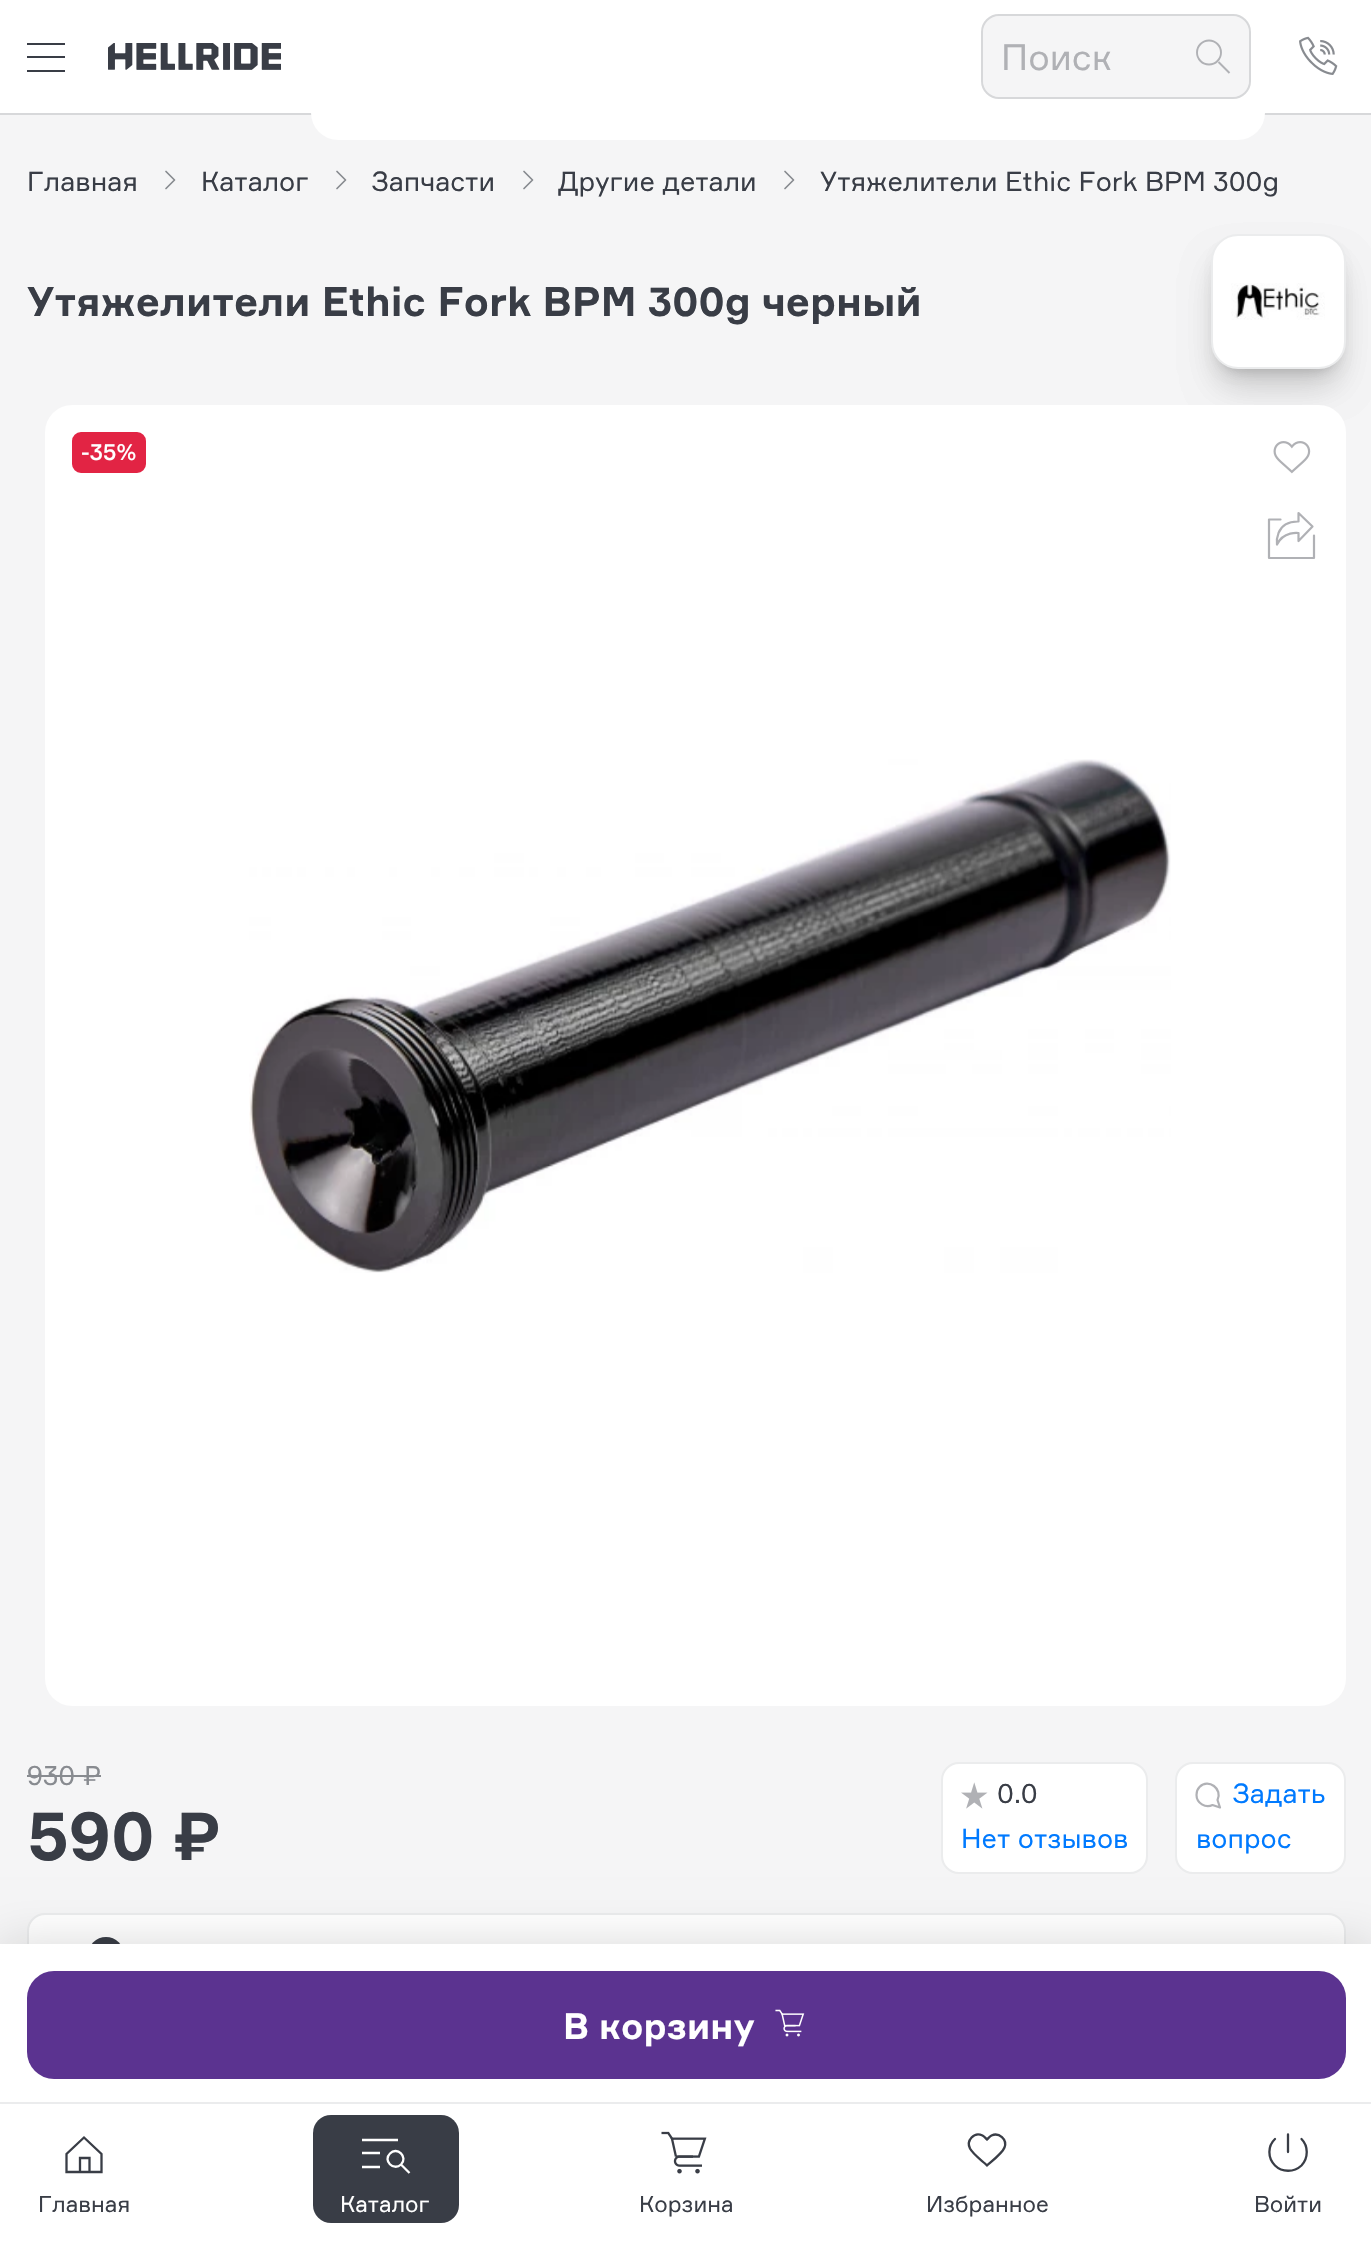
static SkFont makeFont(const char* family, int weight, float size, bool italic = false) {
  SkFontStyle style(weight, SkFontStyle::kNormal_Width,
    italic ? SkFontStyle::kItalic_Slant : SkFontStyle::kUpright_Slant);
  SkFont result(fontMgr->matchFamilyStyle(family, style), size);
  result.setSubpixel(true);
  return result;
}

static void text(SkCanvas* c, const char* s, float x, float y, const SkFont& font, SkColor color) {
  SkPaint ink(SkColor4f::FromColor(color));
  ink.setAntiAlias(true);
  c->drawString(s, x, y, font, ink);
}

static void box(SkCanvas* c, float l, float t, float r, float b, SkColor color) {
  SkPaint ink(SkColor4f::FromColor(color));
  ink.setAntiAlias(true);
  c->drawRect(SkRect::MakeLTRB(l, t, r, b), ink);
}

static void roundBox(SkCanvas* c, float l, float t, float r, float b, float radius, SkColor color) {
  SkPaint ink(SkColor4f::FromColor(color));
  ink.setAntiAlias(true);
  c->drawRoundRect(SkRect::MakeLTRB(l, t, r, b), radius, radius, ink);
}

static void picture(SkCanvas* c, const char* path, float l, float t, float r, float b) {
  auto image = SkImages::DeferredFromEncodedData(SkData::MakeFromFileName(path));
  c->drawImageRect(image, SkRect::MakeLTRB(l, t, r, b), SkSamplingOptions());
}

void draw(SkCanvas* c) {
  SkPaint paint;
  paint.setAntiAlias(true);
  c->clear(0xfff5f5f6);
  box(c, 0, 0, 1371, 113, 0xffffffff);
  box(c, 0, 113, 1371, 115, 0xffd7d8da);
  box(c, 27, 43, 65, 45, 0xff393d46);
  box(c, 27, 56, 65, 58, 0xff393d46);
  box(c, 27, 70, 65, 72, 0xff393d46);
  picture(c, "img_01.png", 108, 43, 281, 70);
  roundBox(c, 311, 0, 1265, 140, 27, 0xffffffff);
  paint.setColor(0xfff5f5f6);
  c->drawRoundRect(SkRect::MakeLTRB(982, 15, 1250, 98), 17, 17, paint);
  paint.setStyle(SkPaint::kStroke_Style);
  paint.setStrokeWidth(2);
  paint.setColor(0xffd7d8da);
  c->drawRoundRect(SkRect::MakeLTRB(982, 15, 1250, 98), 17, 17, paint);
  roundBox(c, 983, 16, 1249, 97, 18, 0xfff5f5f6);
  SkFont face1 = makeFont("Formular", 400, 36);
  text(c, "Поиск", 1001, 70, face1, 0xffb0b1b5);
  paint.setStrokeWidth(1.9f);
  paint.setColor(0xffb0b1b5);
  c->drawCircle(1209, 52.5f, 12, paint);
  c->drawPath(SkPathBuilder().moveTo(1229.5f, 73).lineTo(1218.5f, 62).detach(), paint);
  picture(c, "img_02.png", 1299, 36, 1338, 75);
  SkFont face2 = makeFont("Formular", 400, 27);
  text(c, "Главная", 27, 191, face2, 0xff393d46);
  paint.setStrokeWidth(1.7f);
  paint.setStrokeCap(SkPaint::kRound_Cap);
  paint.setStrokeJoin(SkPaint::kRound_Join);
  paint.setColor(0xff888b90);
  c->drawPath(SkPathBuilder().moveTo(166, 188.5f).lineTo(174.5f, 180).lineTo(166, 171.5f).detach(), paint);
  text(c, "Каталог", 201, 191, face2, 0xff393d46);
  c->drawPath(SkPathBuilder().moveTo(337, 188.5f).lineTo(345.5f, 180).lineTo(337, 171.5f).detach(), paint);
  text(c, "Запчасти", 371, 191, face2, 0xff393d46);
  c->drawPath(SkPathBuilder().moveTo(524, 188.5f).lineTo(532.5f, 180).lineTo(524, 171.5f).detach(), paint);
  text(c, "Другие детали", 558, 191, face2, 0xff393d46);
  c->drawPath(SkPathBuilder().moveTo(785, 188.5f).lineTo(793.5f, 180).lineTo(785, 171.5f).detach(), paint);
  text(c, "Утяжелители Ethic Fork BPM 300g", 820, 191, face2, 0xff393d46);
  SkFont face3 = makeFont("Formular", 700, 40.5f);
  text(c, "Утяжелители Ethic Fork BPM 300g черный", 27, 316, face3, 0xff393d46);
  paint.setStyle(SkPaint::kFill_Style);
  paint.setColor(0x1a000000);
  paint.setMaskFilter(SkMaskFilter::MakeBlur(kNormal_SkBlurStyle, 7));
  c->drawRoundRect(SkRect::MakeLTRB(1220, 252, 1337, 369), 18, 18, paint);
  paint.setMaskFilter(nullptr);
  paint.setMaskFilter(SkMaskFilter::MakeBlur(kNormal_SkBlurStyle, 17));
  c->drawRoundRect(SkRect::MakeLTRB(1217, 263, 1339, 385), 20, 20, paint);
  paint.setMaskFilter(nullptr);
  paint.setMaskFilter(SkMaskFilter::MakeBlur(kNormal_SkBlurStyle, 7));
  c->drawRoundRect(SkRect::MakeLTRB(1220, 252, 1337, 369), 18, 18, paint);
  paint.setMaskFilter(nullptr);
  paint.setMaskFilter(SkMaskFilter::MakeBlur(kNormal_SkBlurStyle, 17));
  c->drawRoundRect(SkRect::MakeLTRB(1217, 263, 1339, 385), 20, 20, paint);
  paint.setMaskFilter(nullptr);
  paint.setColor(0xffffffff);
  c->drawRoundRect(SkRect::MakeLTRB(1212, 235, 1345, 368), 26, 26, paint);
  paint.setStyle(SkPaint::kStroke_Style);
  paint.setStrokeWidth(2);
  paint.setStrokeCap(SkPaint::kButt_Cap);
  paint.setStrokeJoin(SkPaint::kMiter_Join);
  paint.setColor(0xffebeced);
  c->drawRoundRect(SkRect::MakeLTRB(1212, 235, 1345, 368), 26, 26, paint);
  picture(c, "img_03.png", 1231, 283, 1325, 320);
  text(c, "930 ₽", 27, 1785, face2, 0xff888b90);
  box(c, 27, 1775, 101, 1777, 0xff888b90);
  SkFont face4 = makeFont("Formular", 700, 67.5f);
  text(c, "590 ₽", 27, 1860, face4, 0xff393d46);
  paint.setStyle(SkPaint::kFill_Style);
  paint.setColor(0xffffffff);
  c->drawRoundRect(SkRect::MakeLTRB(942, 1763, 1147, 1873), 17, 17, paint);
  paint.setStyle(SkPaint::kStroke_Style);
  paint.setColor(0xffebeced);
  c->drawRoundRect(SkRect::MakeLTRB(942, 1763, 1147, 1873), 17, 17, paint);
  picture(c, "img_04.png", 961, 1782, 988, 1809);
  text(c, "0.0", 997, 1803, face2, 0xff393d46);
  text(c, "Нет отзывов", 961, 1848, face2, 0xff007aff);
  paint.setStyle(SkPaint::kFill_Style);
  paint.setColor(0xffffffff);
  c->drawRoundRect(SkRect::MakeLTRB(1176, 1763, 1345, 1873), 17, 17, paint);
  paint.setStyle(SkPaint::kStroke_Style);
  paint.setColor(0xffebeced);
  c->drawRoundRect(SkRect::MakeLTRB(1176, 1763, 1345, 1873), 17, 17, paint);
  paint.setStrokeWidth(2.2f);
  paint.setStrokeCap(SkPaint::kRound_Cap);
  paint.setStrokeJoin(SkPaint::kRound_Join);
  paint.setColor(0xffb0b1b5);
  c->drawPath(SkPathBuilder().moveTo(1196.5f, 1795).cubicTo(1196.5f, 1803, 1205.5f, 1808.5f, 1212.5f, 1805).lineTo(1220, 1807.5f).lineTo(1217.5f, 1800).cubicTo(1223, 1789, 1208.5f, 1778, 1199.5f, 1787).cubicTo(1197.5f, 1789, 1196.5f, 1792, 1196.5f, 1795).close().detach(), paint);
  text(c, "Задать", 1232, 1803, face2, 0xff007aff);
  text(c, "вопрос", 1196, 1848, face2, 0xff007aff);
  paint.setStyle(SkPaint::kFill_Style);
  paint.setColor(0xffffffff);
  c->drawRoundRect(SkRect::MakeLTRB(28, 1914, 1345, 1997), 17, 17, paint);
  paint.setStyle(SkPaint::kStroke_Style);
  paint.setStrokeWidth(2);
  paint.setStrokeCap(SkPaint::kButt_Cap);
  paint.setStrokeJoin(SkPaint::kMiter_Join);
  paint.setColor(0xffebeced);
  c->drawRoundRect(SkRect::MakeLTRB(28, 1914, 1345, 1997), 17, 17, paint);
  paint.setStyle(SkPaint::kFill_Style);
  paint.setColor(0xff393d46);
  c->drawCircle(106, 1955, 18, paint);
  paint.setColor(0x26000000);
  paint.setMaskFilter(SkMaskFilter::MakeBlur(kNormal_SkBlurStyle, 22.5f));
  c->drawRect(SkRect::MakeLTRB(0, 1944, 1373, 2102), paint);
  paint.setMaskFilter(nullptr);
  box(c, 0, 1944, 1371, 2102, 0xffffffff);
  roundBox(c, 27, 1971, 1346, 2079, 27, 0xff5b3390);
  SkFont face5 = makeFont("Formular", 700, 36);
  text(c, "В корзину", 563, 2039, face5, 0xffffffff);
  picture(c, "img_05.png", 775, 2009, 805, 2037);
  roundBox(c, 45, 405, 1346, 1706, 27, 0xffffffff);
  picture(c, "img_06.png", 249, 759, 1171, 1273);
  paint.setColor(0xffe22444);
  c->drawRoundRect(SkRect::MakeLTRB(74.5f, 434.5f, 143.5f, 470.5f), 6.5f, 6.5f, paint);
  paint.setStyle(SkPaint::kStroke_Style);
  paint.setStrokeWidth(5);
  c->drawRoundRect(SkRect::MakeLTRB(74.5f, 434.5f, 143.5f, 470.5f), 6.5f, 6.5f, paint);
  SkFont face6 = makeFont("Formular", 500, 22.5f);
  text(c, "-35%", 81, 460, face6, 0xffffffff);
  picture(c, "img_07.png", 1273, 441, 1311, 474);
  paint.setStrokeWidth(2.2f);
  paint.setStrokeCap(SkPaint::kRound_Cap);
  paint.setStrokeJoin(SkPaint::kRound_Join);
  paint.setColor(0xffb0b1b5);
  c->drawPath(SkPathBuilder().moveTo(1280.5f, 519.5f).lineTo(1269, 519.5f).lineTo(1269, 558).lineTo(1314, 558).lineTo(1314, 535.5f).moveTo(1277, 544.5f).cubicTo(1277, 544.5f, 1274, 521, 1298.5f, 521.5f).lineTo(1298.5f, 513).lineTo(1312.5f, 526.5f).lineTo(1298.5f, 541).lineTo(1298.5f, 533).cubicTo(1298.5f, 533, 1283.5f, 531, 1277, 544.5f).close().detach(), paint);
  box(c, 0, 2104, 1371, 2267, 0xffffffff);
  box(c, 0, 2102, 1371, 2104, 0xffebeced);
  paint.setStrokeWidth(2.3f);
  paint.setStrokeCap(SkPaint::kButt_Cap);
  paint.setStrokeJoin(SkPaint::kMiter_Join);
  paint.setColor(0xff393d46);
  c->drawPath(SkPathBuilder().moveTo(84, 2137.5f).lineTo(101.5f, 2154).lineTo(101.5f, 2172).lineTo(66.5f, 2172).lineTo(66.5f, 2154).close().moveTo(80, 2158).lineTo(89.5f, 2158).lineTo(89.5f, 2172).lineTo(80, 2172).close().detach(), paint);
  SkFont face7 = makeFont("Formular", 400, 22.5f);
  text(c, "Главная", 38, 2212, face7, 0xff393d46);
  roundBox(c, 313, 2115, 459, 2223, 18, 0xff393d46);
  paint.setColor(0xffffffff);
  c->drawPath(SkPathBuilder().moveTo(362, 2140).lineTo(398, 2140).moveTo(362, 2153).lineTo(380, 2153).moveTo(362, 2167).lineTo(380, 2167).moveTo(390, 2153.5f).cubicTo(397, 2146, 408.5f, 2157, 401, 2164.5f).cubicTo(393.5f, 2171.5f, 382.5f, 2160.5f, 390, 2153.5f).close().moveTo(401, 2164.5f).lineTo(409.5f, 2173).detach(), paint);
  text(c, "Каталог", 340, 2212, face7, 0xffffffff);
  picture(c, "img_08.png", 661, 2131, 707, 2174);
  text(c, "Корзина", 639, 2212, face7, 0xff393d46);
  paint.setColor(0xff393d46);
  c->drawPath(SkPathBuilder().moveTo(985, 2163.5f).cubicTo(980.5f, 2159.5f, 973, 2154, 970, 2148.5f).cubicTo(966, 2140.5f, 974, 2131.5f, 982.5f, 2135.5f).cubicTo(984.5f, 2136.5f, 985.5f, 2138, 987, 2139.5f).cubicTo(988.5f, 2138, 989.5f, 2136.5f, 991.5f, 2135.5f).cubicTo(999, 2132, 1007.5f, 2139.5f, 1004.5f, 2147.5f).cubicTo(1002.5f, 2153, 991.5f, 2161.5f, 987, 2165.5f).close().detach(), paint);
  text(c, "Избранное", 926, 2212, face7, 0xff393d46);
  paint.setStrokeCap(SkPaint::kRound_Cap);
  c->drawPath(SkPathBuilder().moveTo(1275, 2139).cubicTo(1267.5f, 2146, 1267.5f, 2158, 1275, 2165.5f).cubicTo(1282, 2172.5f, 1294, 2172.5f, 1301.5f, 2165.5f).cubicTo(1308.5f, 2158, 1308.5f, 2146, 1301.5f, 2139).moveTo(1288, 2152).lineTo(1288, 2134.5f).detach(), paint);
  text(c, "Войти", 1254, 2212, face7, 0xff393d46);
}
